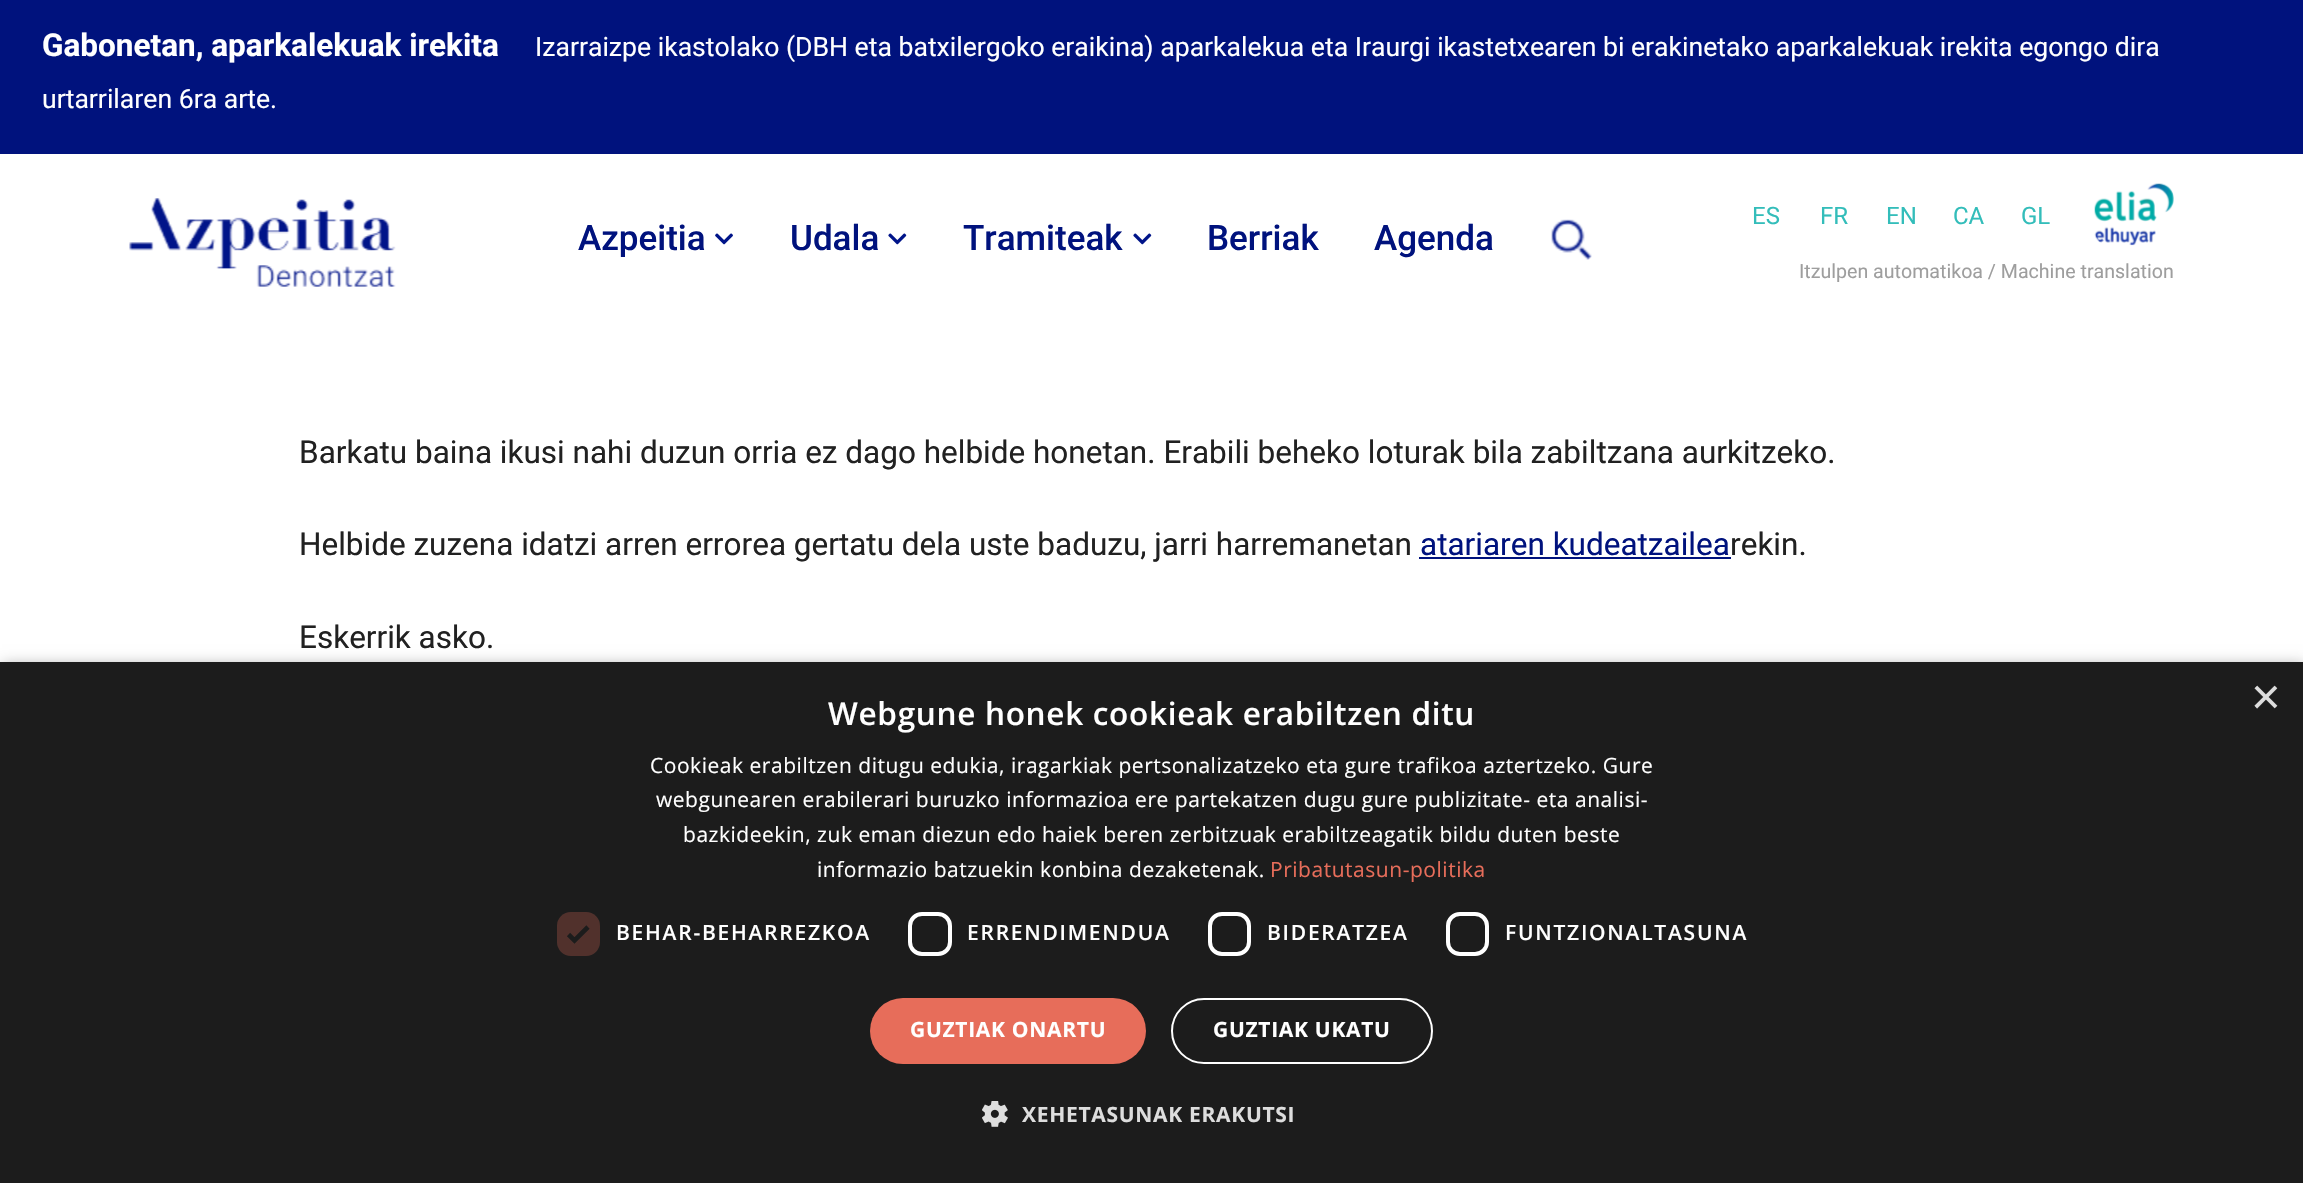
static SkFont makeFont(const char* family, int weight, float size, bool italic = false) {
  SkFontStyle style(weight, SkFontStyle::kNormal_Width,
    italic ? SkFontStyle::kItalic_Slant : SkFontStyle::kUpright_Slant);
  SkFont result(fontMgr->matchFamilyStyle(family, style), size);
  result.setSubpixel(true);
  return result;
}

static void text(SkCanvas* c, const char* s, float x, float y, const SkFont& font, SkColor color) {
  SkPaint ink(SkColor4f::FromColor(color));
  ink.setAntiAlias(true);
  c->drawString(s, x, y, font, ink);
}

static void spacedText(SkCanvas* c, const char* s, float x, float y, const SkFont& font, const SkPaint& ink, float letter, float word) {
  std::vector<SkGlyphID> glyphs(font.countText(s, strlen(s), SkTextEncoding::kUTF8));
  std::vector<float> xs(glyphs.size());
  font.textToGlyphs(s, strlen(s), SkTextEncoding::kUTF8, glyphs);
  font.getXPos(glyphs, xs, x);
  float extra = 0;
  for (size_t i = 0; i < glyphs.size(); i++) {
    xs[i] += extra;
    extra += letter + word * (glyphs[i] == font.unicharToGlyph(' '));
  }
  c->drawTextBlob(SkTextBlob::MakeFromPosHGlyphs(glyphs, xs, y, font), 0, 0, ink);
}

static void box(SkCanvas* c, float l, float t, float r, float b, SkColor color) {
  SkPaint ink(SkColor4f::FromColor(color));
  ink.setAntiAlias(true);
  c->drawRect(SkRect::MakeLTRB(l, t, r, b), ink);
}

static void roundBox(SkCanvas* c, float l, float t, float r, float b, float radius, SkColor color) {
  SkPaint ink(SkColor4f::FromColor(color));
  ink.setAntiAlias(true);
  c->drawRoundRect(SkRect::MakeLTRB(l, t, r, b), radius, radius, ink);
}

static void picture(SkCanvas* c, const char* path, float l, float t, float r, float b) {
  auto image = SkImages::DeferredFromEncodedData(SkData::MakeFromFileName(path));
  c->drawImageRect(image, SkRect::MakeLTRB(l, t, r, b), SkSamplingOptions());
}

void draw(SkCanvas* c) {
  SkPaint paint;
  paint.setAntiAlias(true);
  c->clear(0xffffffff);
  box(c, 0, 0, 2303, 154, 0xff00127d);
  SkFont face1 = makeFont("Roboto", 700, 31.5f);
  text(c, "Gabonetan, aparkalekuak irekita", 42, 56, face1, 0xffffffff);
  SkFont face2 = makeFont("Roboto", 400, 26.6f);
  text(c, "Izarraizpe ikastolako (DBH eta batxilergoko eraikina) aparkalekua eta Iraurgi ikastetxearen bi erakinetako aparkalekuak irekita egongo dira", 535, 56, face2, 0xffffffff);
  text(c, "urtarrilaren 6ra arte.", 42, 108, face2, 0xffffffff);
  picture(c, "img_01.png", 129, 198, 396, 287);
  SkFont face3 = makeFont("Roboto", 500, 35);
  text(c, "Azpeitia", 578, 250, face3, 0xff00127d);
  picture(c, "img_02.png", 715, 233, 733, 245);
  text(c, "Udala", 790, 250, face3, 0xff00127d);
  picture(c, "img_03.png", 888, 233, 907, 245);
  text(c, "Tramiteak", 963, 250, face3, 0xff00127d);
  picture(c, "img_03.png", 1133, 233, 1152, 245);
  text(c, "Berriak", 1207, 250, face3, 0xff00127d);
  text(c, "Agenda", 1374, 250, face3, 0xff00127d);
  picture(c, "img_04.png", 1551, 219, 1592, 260);
  SkFont face4 = makeFont("Roboto", 400, 24);
  text(c, "ES", 1752, 224, face4, 0xff33bdba);
  text(c, "FR", 1820, 224, face4, 0xff33bdba);
  text(c, "EN", 1886, 224, face4, 0xff33bdba);
  text(c, "CA", 1953, 224, face4, 0xff33bdba);
  text(c, "GL", 2021, 224, face4, 0xff33bdba);
  picture(c, "img_05.png", 2094, 183, 2174, 246);
  SkFont face5 = makeFont("Roboto", 400, 19.6f);
  text(c, "Itzulpen automatikoa / Machine translation", 1799, 278, face5, 0xff9e9e9e);
  SkFont face6 = makeFont("Roboto", 400, 31.5f);
  text(c, "Barkatu baina ikusi nahi duzun orria ez dago helbide honetan. Erabili beheko loturak bila zabiltzana aurkitzeko.", 299, 463, face6, 0xff212121);
  text(c, "Helbide zuzena idatzi arren errorea gertatu dela uste baduzu, jarri harremanetan", 299, 555, face6, 0xff212121);
  text(c, "atariaren kudeatzailea", 1420, 555, face6, 0xff00127d);
  box(c, 1419, 557, 1731, 559, 0xff00127d);
  text(c, "rekin.", 1730, 555, face6, 0xff212121);
  text(c, "Eskerrik asko.", 299, 648, face6, 0xff212121);
  paint.setColor(0x59000000);
  paint.setMaskFilter(SkMaskFilter::MakeBlur(kNormal_SkBlurStyle, 7));
  c->drawRect(SkRect::MakeLTRB(2, 665, 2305, 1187), paint);
  paint.setMaskFilter(nullptr);
  box(c, 0, 662, 2303, 1183, 0xff1c1c1c);
  SkFont face7 = makeFont("Liberation Sans", 400, 51);
  text(c, "×", 2251, 714, face7, 0xffdddddd);
  SkFont face8 = makeFont("Open Sans", 600, 31.5f);
  paint.setColor(0xffffffff);
  spacedText(c, "Webgune honek cookieak erabiltzen ditu", 828, 725, face8, paint, 0.7f, 0);
  SkFont face9 = makeFont("Open Sans", 400, 21);
  spacedText(c, "Cookieak erabiltzen ditugu edukia, iragarkiak pertsonalizatzeko eta gure trafikoa aztertzeko. Gure", 650, 773, face9, paint, 0.53f, 0);
  spacedText(c, "webgunearen erabilerari buruzko informazioa ere partekatzen dugu gure publizitate- eta analisi-", 656, 807, face9, paint, 0.53f, 0);
  spacedText(c, "bazkideekin, zuk eman diezun edo haiek beren zerbitzuak erabiltzeagatik bildu duten beste", 683, 842, face9, paint, 0.53f, 0);
  spacedText(c, "informazio batzuekin konbina dezaketenak.", 817, 877, face9, paint, 0.53f, 0);
  paint.setColor(0xffe76d5a);
  spacedText(c, "Pribatutasun-politika", 1270, 877, face9, paint, 0.53f, 0);
  roundBox(c, 557, 912, 600, 956, 14, 0xff51312c);
  paint.setStyle(SkPaint::kStroke_Style);
  paint.setStrokeWidth(4.6f);
  paint.setColor(0xff1c1c1c);
  c->drawPath(SkPathBuilder().moveTo(568.5f, 934.5f).lineTo(574.5f, 940.5f).lineTo(588, 927).detach(), paint);
  SkFont face10 = makeFont("Open Sans", 600, 21);
  paint.setStyle(SkPaint::kFill_Style);
  paint.setColor(0xffffffff);
  spacedText(c, "BEHAR-BEHARREZKOA", 616, 940, face10, paint, 1.75f, 0);
  paint.setStyle(SkPaint::kStroke_Style);
  paint.setStrokeWidth(4);
  c->drawRoundRect(SkRect::MakeLTRB(910, 914, 950, 954), 12, 12, paint);
  paint.setStyle(SkPaint::kFill_Style);
  spacedText(c, "ERRENDIMENDUA", 967, 940, face10, paint, 1.75f, 0);
  paint.setStyle(SkPaint::kStroke_Style);
  c->drawRoundRect(SkRect::MakeLTRB(1210, 914, 1249, 954), 12, 12, paint);
  paint.setStyle(SkPaint::kFill_Style);
  spacedText(c, "BIDERATZEA", 1267, 940, face10, paint, 1.75f, 0);
  paint.setStyle(SkPaint::kStroke_Style);
  c->drawRoundRect(SkRect::MakeLTRB(1448, 914, 1487, 954), 12, 12, paint);
  paint.setStyle(SkPaint::kFill_Style);
  spacedText(c, "FUNTZIONALTASUNA", 1505, 940, face10, paint, 1.75f, 0);
  roundBox(c, 870, 998, 1146, 1064, 33, 0xffe76d5a);
  SkFont face11 = makeFont("Open Sans", 700, 21);
  spacedText(c, "GUZTIAK ONARTU", 910, 1037, face11, paint, 0.7f, 0);
  paint.setStyle(SkPaint::kStroke_Style);
  paint.setStrokeWidth(2);
  c->drawRoundRect(SkRect::MakeLTRB(1172, 999, 1432, 1063), 32, 32, paint);
  paint.setStyle(SkPaint::kFill_Style);
  spacedText(c, "GUZTIAK UKATU", 1213, 1037, face11, paint, 0.7f, 0);
  picture(c, "img_06.png", 982, 1101, 1008, 1127);
  paint.setColor(0xffdddddd);
  spacedText(c, "XEHETASUNAK ERAKUTSI", 1022, 1122, face11, paint, 0.7f, 0);
}
